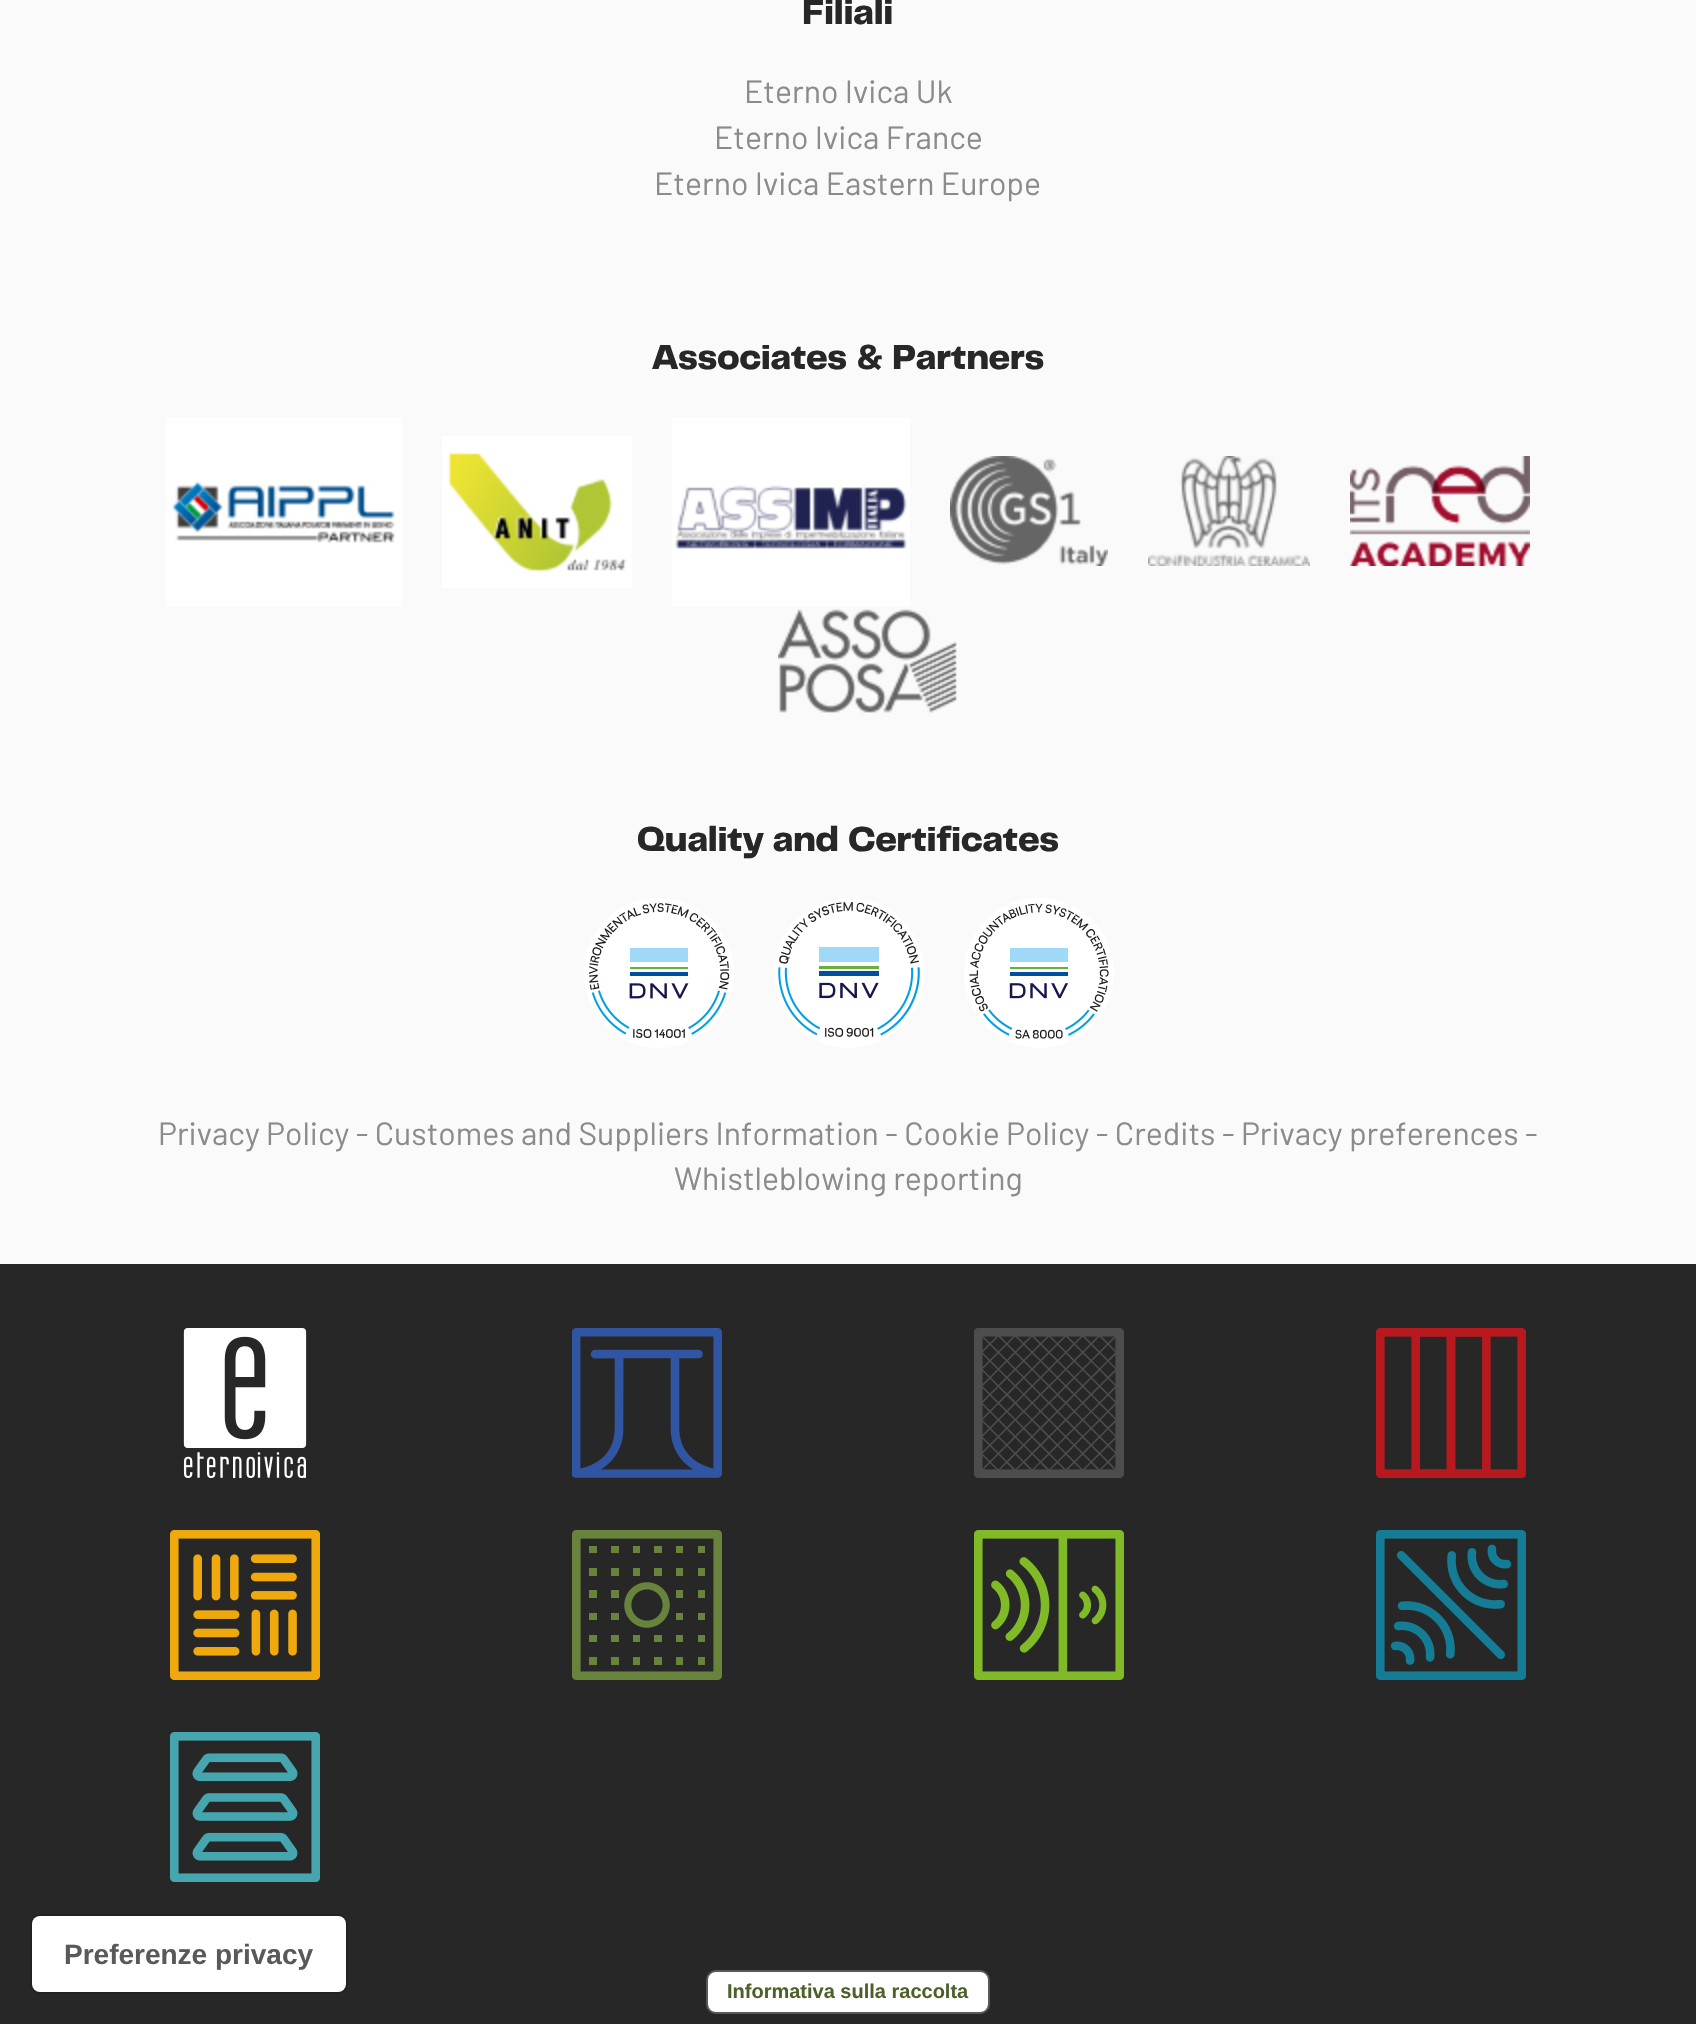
static SkFont makeFont(const char* family, int weight, float size, bool italic = false) {
  SkFontStyle style(weight, SkFontStyle::kNormal_Width,
    italic ? SkFontStyle::kItalic_Slant : SkFontStyle::kUpright_Slant);
  SkFont result(fontMgr->matchFamilyStyle(family, style), size);
  result.setSubpixel(true);
  return result;
}

static void text(SkCanvas* c, const char* s, float x, float y, const SkFont& font, SkColor color) {
  SkPaint ink(SkColor4f::FromColor(color));
  ink.setAntiAlias(true);
  c->drawString(s, x, y, font, ink);
}

static void box(SkCanvas* c, float l, float t, float r, float b, SkColor color) {
  SkPaint ink(SkColor4f::FromColor(color));
  ink.setAntiAlias(true);
  c->drawRect(SkRect::MakeLTRB(l, t, r, b), ink);
}

static void roundBox(SkCanvas* c, float l, float t, float r, float b, float radius, SkColor color) {
  SkPaint ink(SkColor4f::FromColor(color));
  ink.setAntiAlias(true);
  c->drawRoundRect(SkRect::MakeLTRB(l, t, r, b), radius, radius, ink);
}

static void picture(SkCanvas* c, const char* path, float l, float t, float r, float b) {
  auto image = SkImages::DeferredFromEncodedData(SkData::MakeFromFileName(path));
  c->drawImageRect(image, SkRect::MakeLTRB(l, t, r, b), SkSamplingOptions());
}

void draw(SkCanvas* c) {
  SkPaint paint;
  paint.setAntiAlias(true);
  c->clear(0xff272727);
  box(c, 0, 0, 1696, 1264, 0xfffafafa);
  SkFont face1 = makeFont("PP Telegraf", 800, 36);
  text(c, "Filiali", 802, 24, face1, 0xff272727);
  SkFont face2 = makeFont("Barlow", 400, 32);
  text(c, "Eterno Ivica Uk", 744, 103, face2, 0xff8a8b8a);
  text(c, "Eterno Ivica France", 714, 149, face2, 0xff8a8b8a);
  text(c, "Eterno Ivica Eastern Europe", 654, 195, face2, 0xff8a8b8a);
  text(c, "Associates & Partners", 652, 369, face1, 0xff272727);
  picture(c, "img_01.png", 166, 418, 402, 606);
  picture(c, "img_02.png", 442, 436, 632, 588);
  picture(c, "img_03.png", 672, 418, 910, 606);
  picture(c, "img_04.png", 950, 456, 1108, 566);
  picture(c, "img_05.png", 1148, 456, 1310, 566);
  picture(c, "img_06.png", 1350, 456, 1530, 566);
  picture(c, "img_07.png", 778, 609, 957, 713);
  text(c, "Quality and Certificates", 637, 851, face1, 0xff272727);
  picture(c, "img_08.png", 584, 898, 734, 1048);
  picture(c, "img_09.png", 774, 898, 924, 1048);
  picture(c, "img_10.png", 964, 898, 1114, 1048);
  text(c, "Privacy Policy - Customes and Suppliers Information - Cookie Policy - Credits - Privacy preferences -", 158, 1145, face2, 0xff8a8b8a);
  text(c, "Whistleblowing reporting", 674, 1190, face2, 0xff8a8b8a);
  picture(c, "img_11.png", 183, 1328, 307, 1478);
  picture(c, "img_12.png", 572, 1328, 722, 1478);
  picture(c, "img_13.png", 974, 1328, 1124, 1478);
  picture(c, "img_14.png", 1376, 1328, 1526, 1478);
  picture(c, "img_15.png", 170, 1530, 320, 1680);
  picture(c, "img_16.png", 572, 1530, 722, 1680);
  picture(c, "img_17.png", 974, 1530, 1124, 1680);
  picture(c, "img_18.png", 1376, 1530, 1526, 1680);
  picture(c, "img_19.png", 170, 1732, 320, 1882);
  paint.setStyle(SkPaint::kStroke_Style);
  paint.setStrokeWidth(2);
  paint.setColor(0xff212121);
  c->drawRoundRect(SkRect::MakeLTRB(31, 1915, 347, 1993), 9, 9, paint);
  roundBox(c, 32, 1916, 346, 1992, 8, 0xffffffff);
  SkFont face3 = makeFont("Liberation Sans", 700, 28);
  text(c, "Preferenze privacy", 64, 1964, face3, 0xff595959);
  paint.setStyle(SkPaint::kFill_Style);
  paint.setColor(0xffffffff);
  c->drawRoundRect(SkRect::MakeLTRB(707, 1971, 989, 2013), 9, 9, paint);
  paint.setStyle(SkPaint::kStroke_Style);
  paint.setColor(0xff595959);
  c->drawRoundRect(SkRect::MakeLTRB(707, 1971, 989, 2013), 9, 9, paint);
  SkFont face4 = makeFont("Liberation Sans", 700, 20);
  text(c, "Informativa sulla raccolta", 727, 1998, face4, 0xff4c602a);
}
